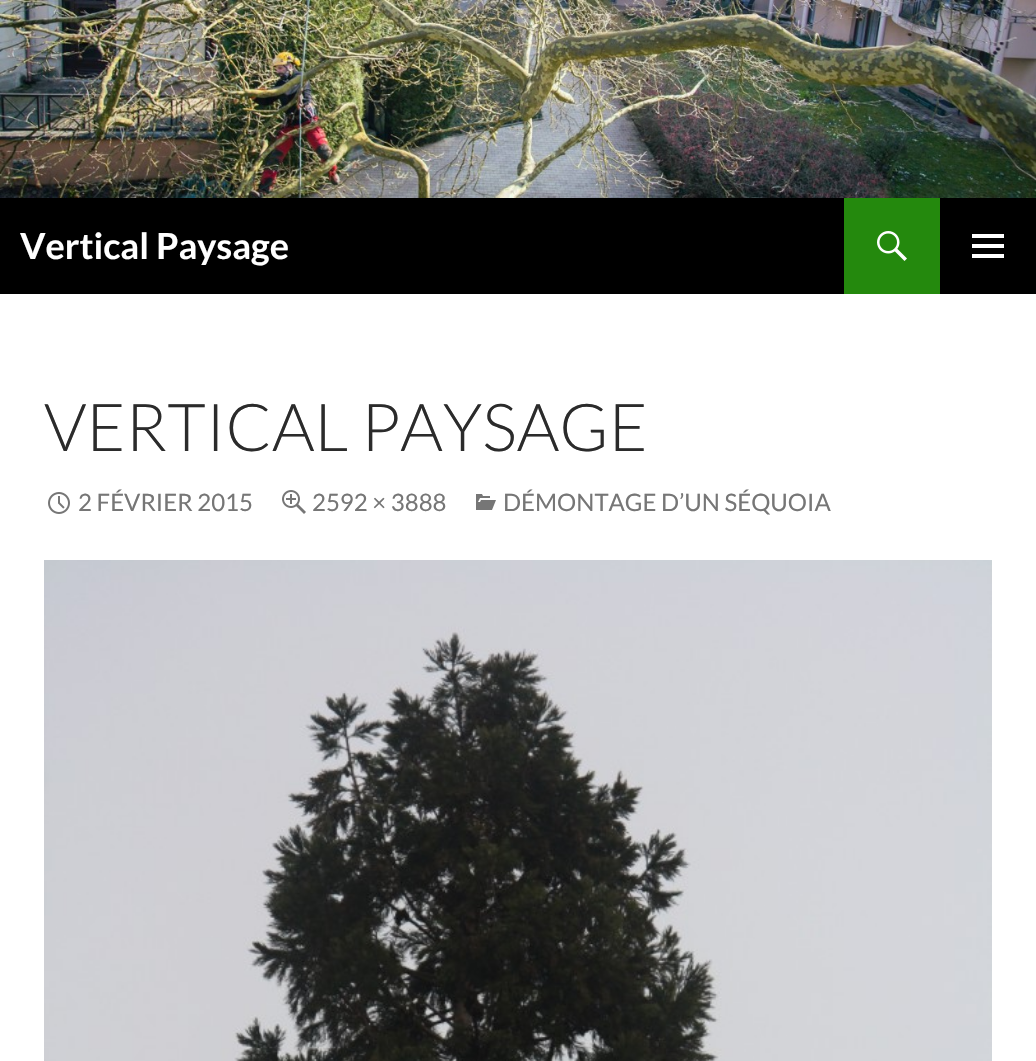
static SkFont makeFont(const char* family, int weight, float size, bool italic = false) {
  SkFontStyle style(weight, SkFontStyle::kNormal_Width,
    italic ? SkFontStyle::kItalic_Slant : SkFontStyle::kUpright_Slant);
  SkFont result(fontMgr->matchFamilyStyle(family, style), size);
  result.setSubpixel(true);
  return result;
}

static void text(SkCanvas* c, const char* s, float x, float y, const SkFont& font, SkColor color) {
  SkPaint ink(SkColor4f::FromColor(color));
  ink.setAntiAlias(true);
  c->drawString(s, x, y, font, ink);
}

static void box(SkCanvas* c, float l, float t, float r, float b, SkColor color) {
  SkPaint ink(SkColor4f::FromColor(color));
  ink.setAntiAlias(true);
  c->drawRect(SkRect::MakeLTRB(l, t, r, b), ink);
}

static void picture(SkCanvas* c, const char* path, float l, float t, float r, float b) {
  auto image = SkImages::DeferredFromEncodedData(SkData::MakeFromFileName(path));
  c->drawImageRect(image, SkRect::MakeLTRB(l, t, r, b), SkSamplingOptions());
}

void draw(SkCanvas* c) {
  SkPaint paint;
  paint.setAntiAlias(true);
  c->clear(0xffffffff);
  picture(c, "img_01.png", 0, 0, 1036, 198);
  box(c, 0, 198, 1036, 294, 0xff000000);
  SkFont face1 = makeFont("Lato", 700, 36);
  text(c, "Vertical Paysage", 20, 259, face1, 0xffffffff);
  box(c, 844, 198, 940, 294, 0xff24890d);
  picture(c, "img_02.png", 877, 231, 907, 261);
  picture(c, "img_03.png", 972, 234, 1004, 258);
  SkFont face2 = makeFont("Lato", 300, 66);
  text(c, "VERTICAL PAYSAGE", 44, 451, face2, 0xff2b2b2b);
  picture(c, "img_04.png", 48, 492, 70, 514);
  SkFont face3 = makeFont("Lato", 400, 24);
  text(c, "2 FÉVRIER 2015", 78, 511, face3, 0xff767676);
  picture(c, "img_05.png", 282, 490, 306, 514);
  text(c, "2592 × 3888", 312, 511, face3, 0xff767676);
  picture(c, "img_06.png", 476, 494, 496, 510);
  text(c, "DÉMONTAGE D’UN SÉQUOIA", 503, 511, face3, 0xff767676);
  picture(c, "img_07.png", 44, 560, 992, 1061);
}
